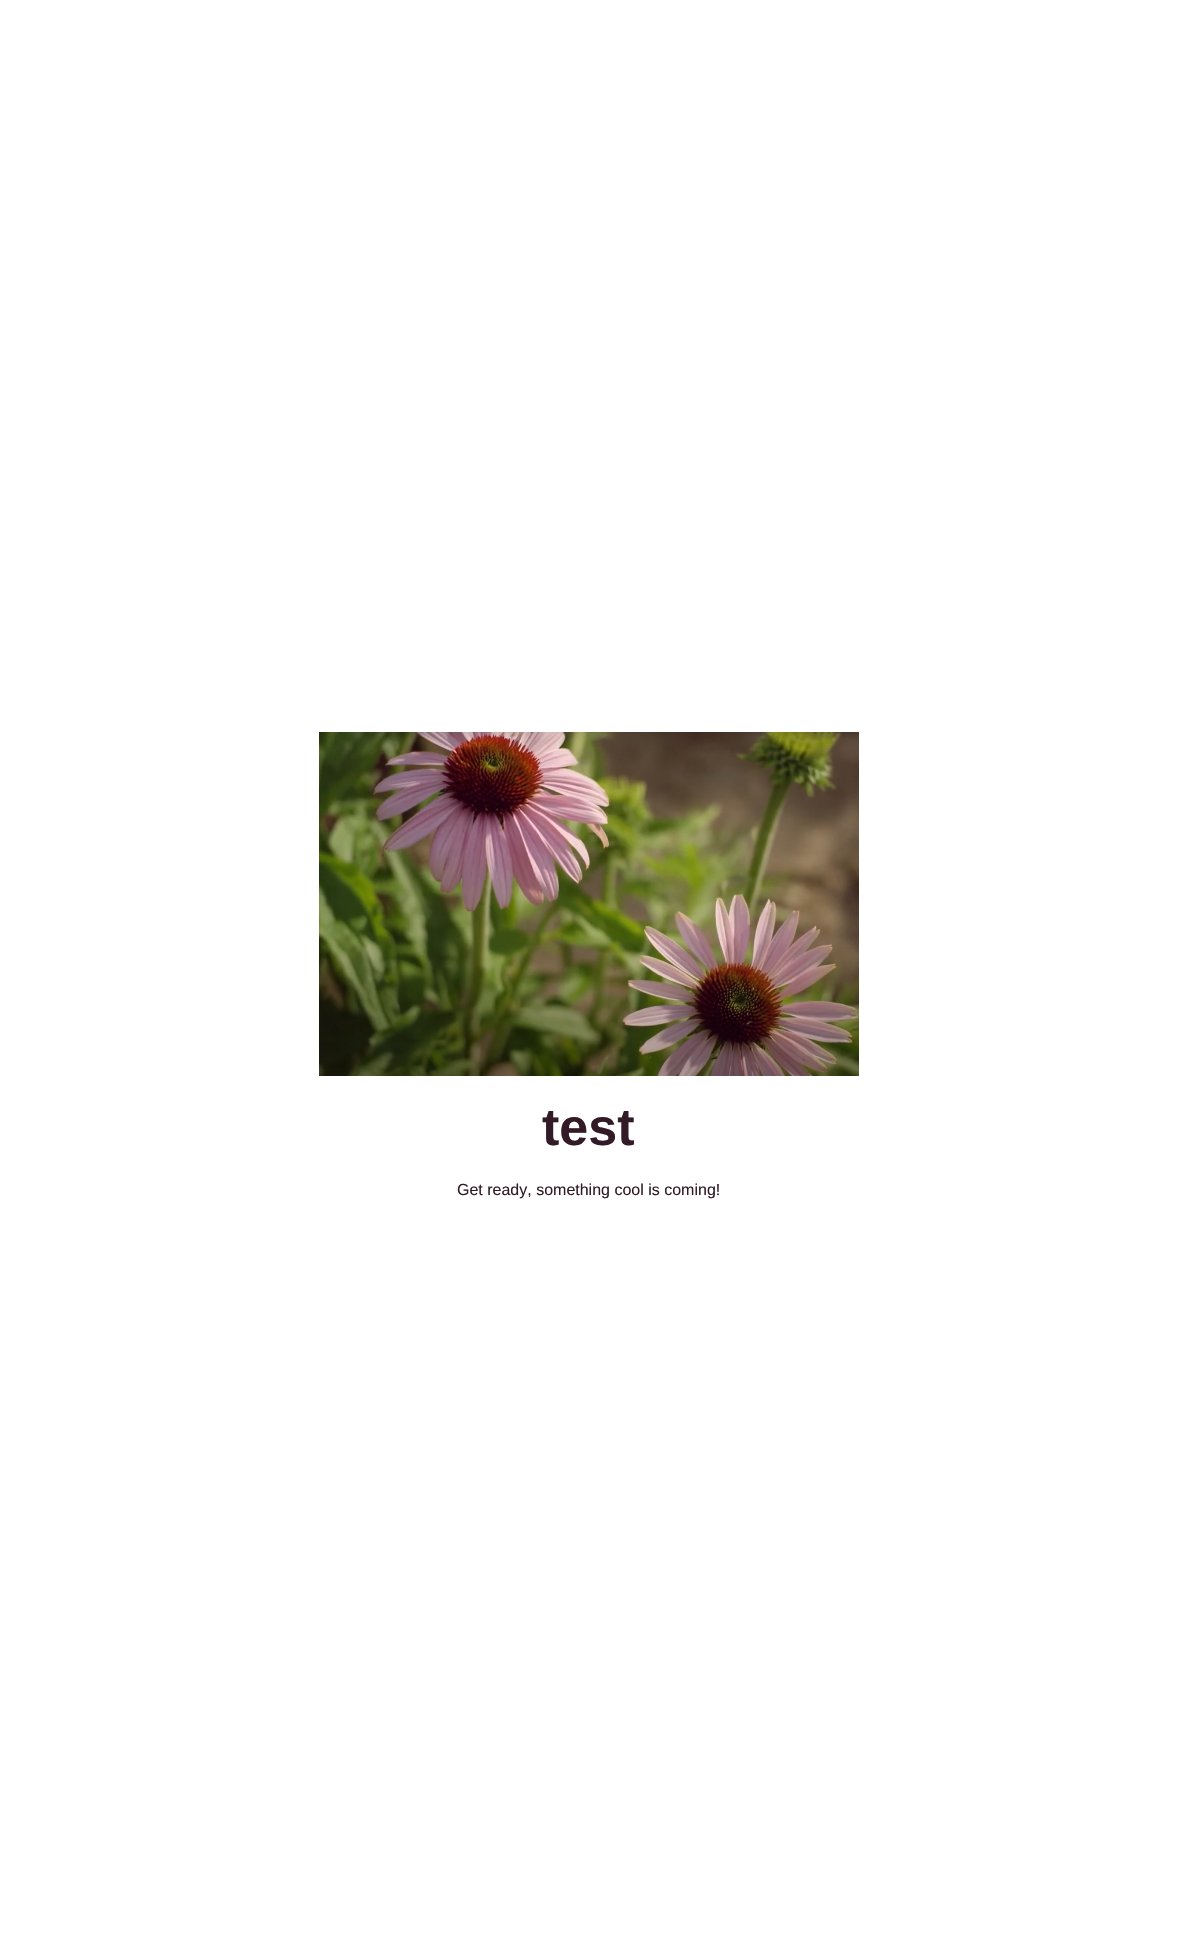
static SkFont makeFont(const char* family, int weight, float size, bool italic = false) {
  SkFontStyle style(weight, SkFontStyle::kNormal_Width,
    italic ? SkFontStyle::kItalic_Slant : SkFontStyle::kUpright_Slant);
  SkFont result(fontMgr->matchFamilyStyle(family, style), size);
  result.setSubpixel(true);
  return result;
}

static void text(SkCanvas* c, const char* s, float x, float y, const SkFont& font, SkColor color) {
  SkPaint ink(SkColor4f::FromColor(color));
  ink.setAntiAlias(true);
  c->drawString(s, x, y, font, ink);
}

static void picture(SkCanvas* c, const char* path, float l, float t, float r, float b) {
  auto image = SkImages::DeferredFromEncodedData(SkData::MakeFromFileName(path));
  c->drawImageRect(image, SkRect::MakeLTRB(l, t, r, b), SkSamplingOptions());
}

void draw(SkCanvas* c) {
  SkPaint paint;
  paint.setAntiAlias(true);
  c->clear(0xffffffff);
  picture(c, "img_01.png", 319, 732, 859, 1076);
  SkFont face1 = makeFont("Liberation Sans", 700, 52);
  text(c, "test", 542, 1145, face1, 0xff321b26);
  SkFont face2 = makeFont("Liberation Sans", 400, 16);
  text(c, "Get ready, something cool is coming!", 457, 1195, face2, 0xff321b26);
}
